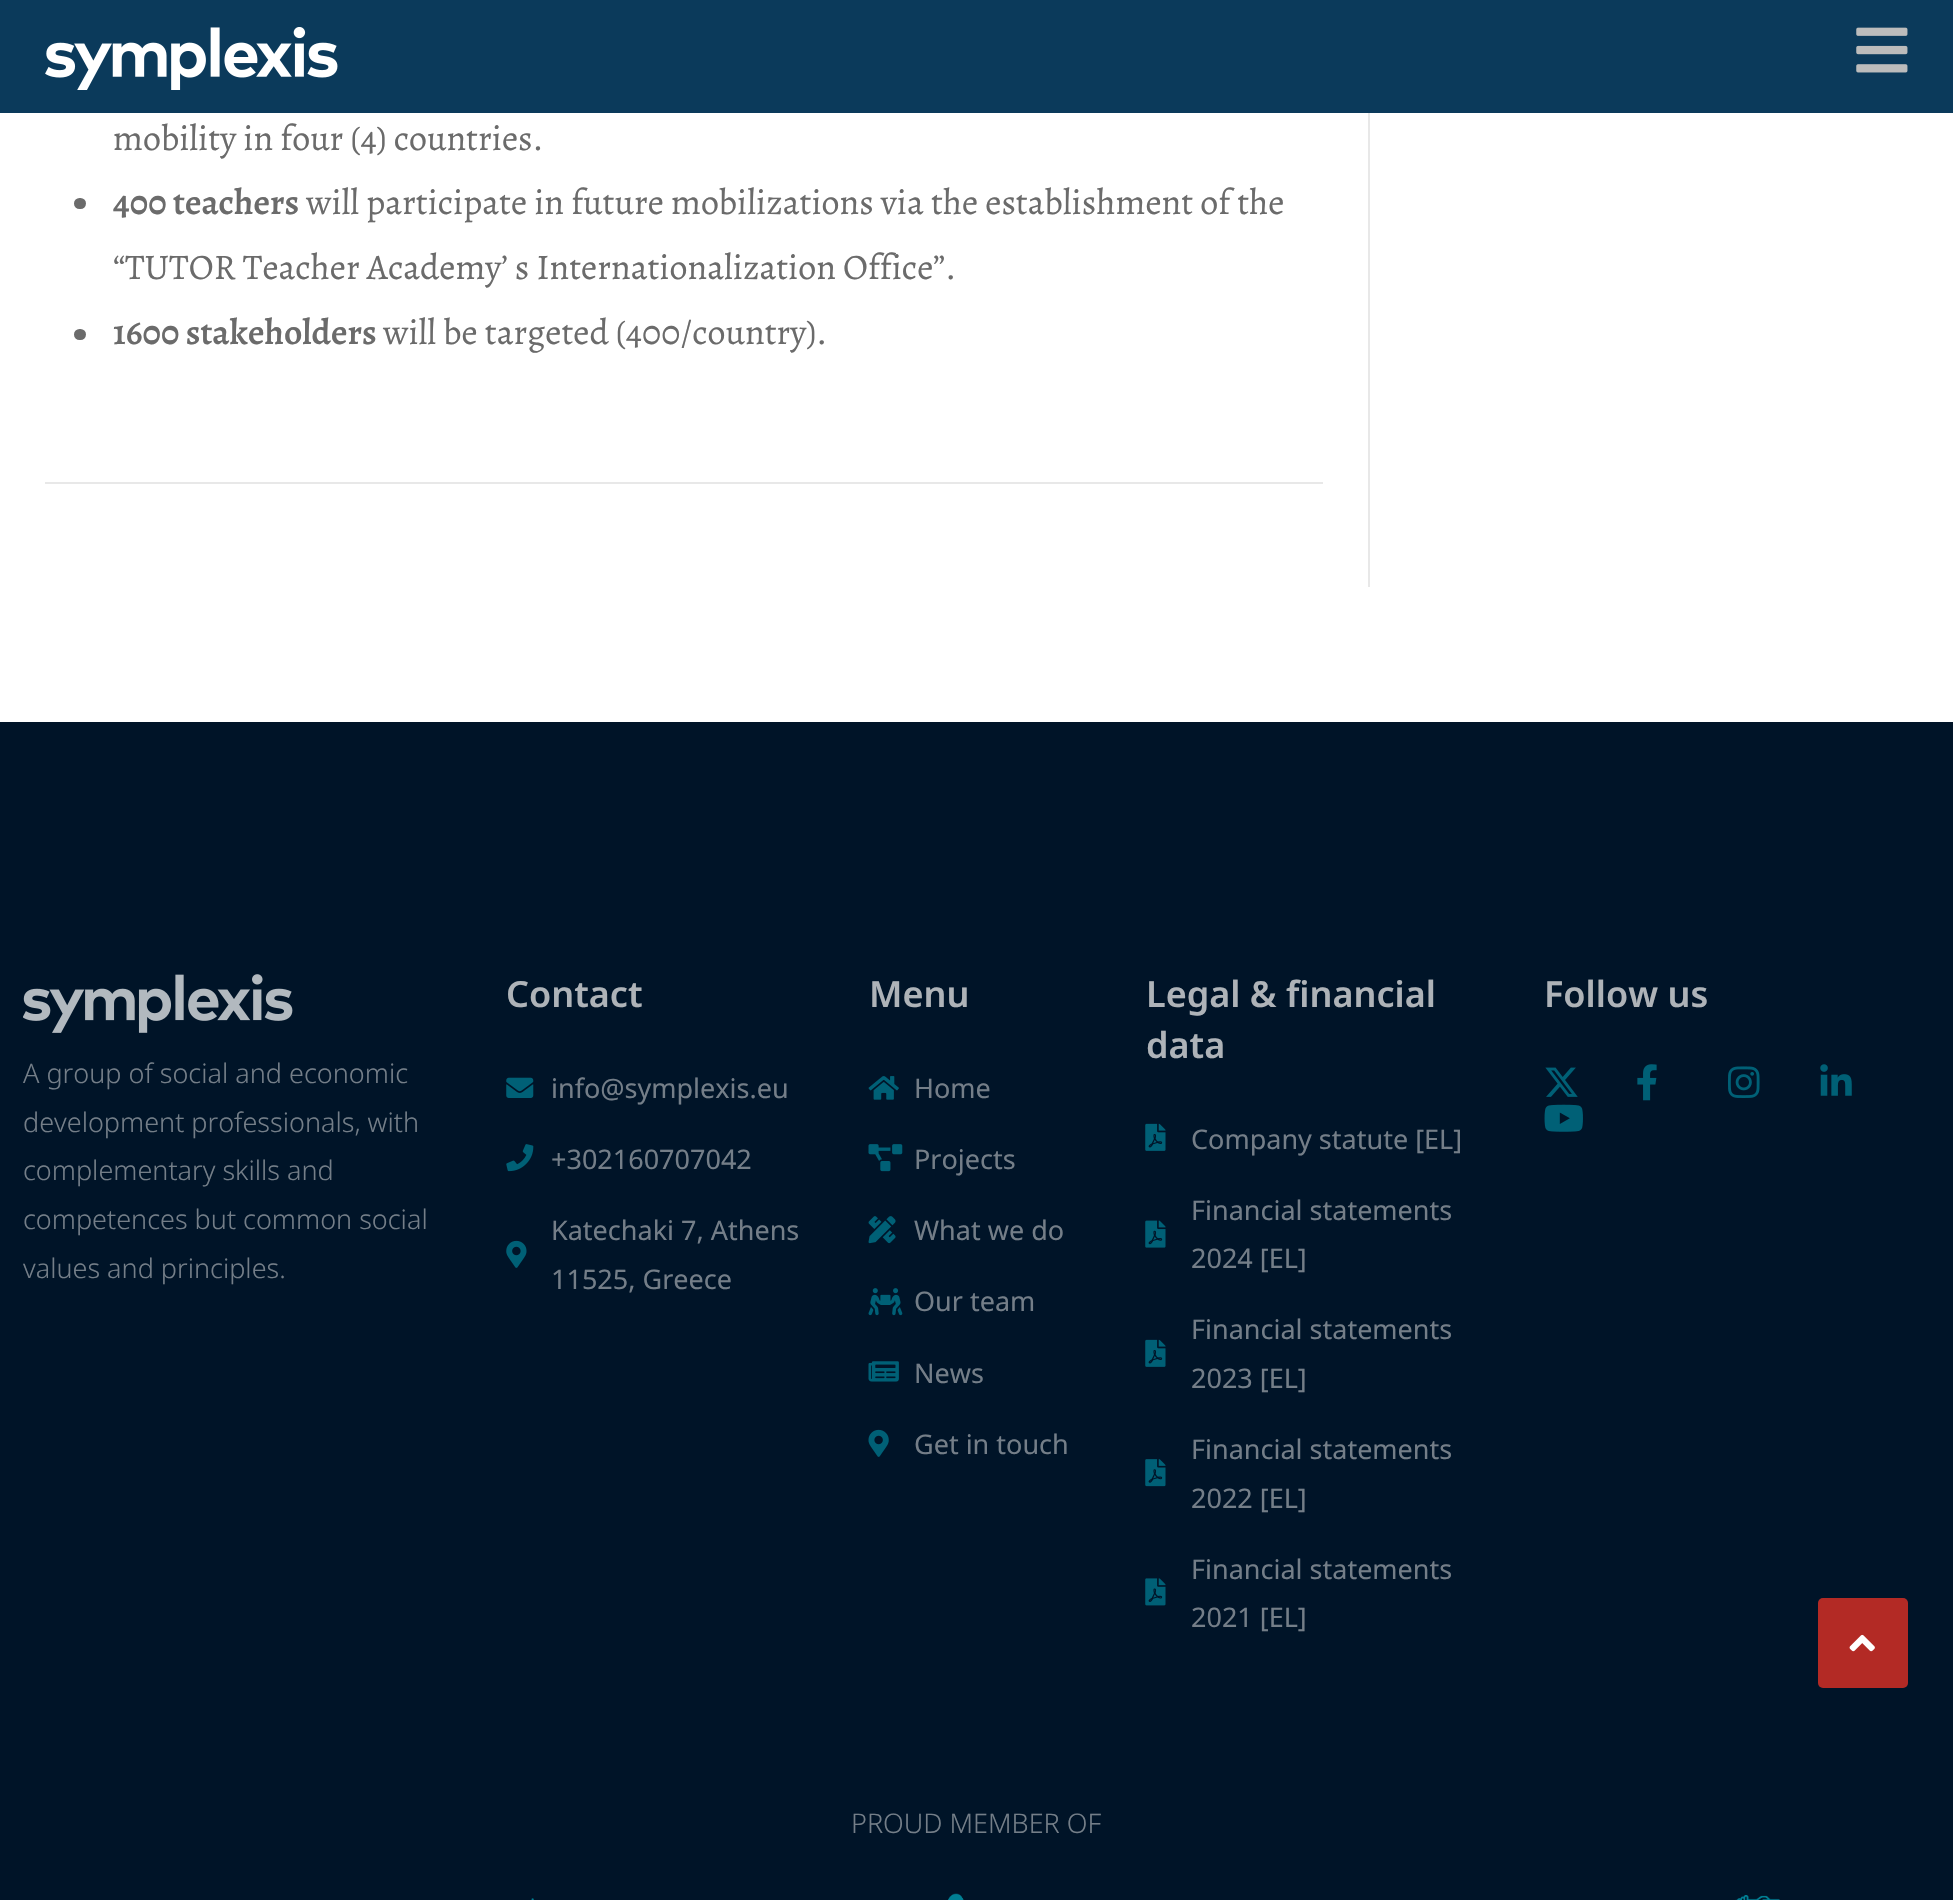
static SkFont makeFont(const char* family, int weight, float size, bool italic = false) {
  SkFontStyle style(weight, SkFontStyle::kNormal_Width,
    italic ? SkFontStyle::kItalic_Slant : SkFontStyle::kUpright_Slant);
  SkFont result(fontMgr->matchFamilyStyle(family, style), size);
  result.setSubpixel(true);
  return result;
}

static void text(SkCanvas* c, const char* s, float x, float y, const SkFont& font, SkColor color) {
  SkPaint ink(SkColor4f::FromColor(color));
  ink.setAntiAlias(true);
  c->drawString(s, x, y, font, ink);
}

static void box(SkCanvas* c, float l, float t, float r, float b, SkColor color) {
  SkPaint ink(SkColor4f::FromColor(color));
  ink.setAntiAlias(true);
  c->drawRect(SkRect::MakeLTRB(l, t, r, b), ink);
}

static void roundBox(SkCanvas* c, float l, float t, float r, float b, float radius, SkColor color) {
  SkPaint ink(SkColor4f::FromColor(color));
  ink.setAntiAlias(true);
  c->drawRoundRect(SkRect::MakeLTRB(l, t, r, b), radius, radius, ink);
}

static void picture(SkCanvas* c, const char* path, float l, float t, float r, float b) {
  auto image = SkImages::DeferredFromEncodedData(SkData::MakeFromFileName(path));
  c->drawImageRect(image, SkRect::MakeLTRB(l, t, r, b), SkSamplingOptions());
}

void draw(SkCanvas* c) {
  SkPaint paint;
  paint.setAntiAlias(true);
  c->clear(0xffffffff);
  box(c, 0, 0, 1953, 113, 0xff0b3a5b);
  picture(c, "img_01.png", 45, 27, 338, 90);
  picture(c, "img_02.png", 1856, 27, 1908, 73);
  SkFont face1 = makeFont("Alegreya", 400, 36);
  text(c, "mobility in four (4) countries.", 113, 150, face1, 0xff6b6b6b);
  roundBox(c, 74, 198, 86, 209, 5.5f, 0xff6b6b6b);
  SkFont face2 = makeFont("Alegreya", 600, 36);
  text(c, "400 teachers", 113, 214, face2, 0xff6b6b6b);
  text(c, "will participate in future mobilizations via the establishment of the", 306, 214, face1, 0xff6b6b6b);
  text(c, "“TUTOR Teacher Academy’ s Internationalization Office”.", 113, 279, face1, 0xff6b6b6b);
  roundBox(c, 74, 329, 86, 340, 5.5f, 0xff6b6b6b);
  text(c, "1600 stakeholders", 113, 344, face2, 0xff6b6b6b);
  text(c, "will be targeted (400/country).", 383, 344, face1, 0xff6b6b6b);
  box(c, 45, 482, 1323, 484, 0xffe8e8e8);
  box(c, 1368, 113, 1370, 587, 0xffe8e8e8);
  box(c, 0, 722, 1953, 1900, 0xff001428);
  picture(c, "img_03.png", 23, 974, 293, 1033);
  SkFont face3 = makeFont("Noto Sans", 300, 27);
  text(c, "A group of social and economic", 23, 1083, face3, 0xff747e88);
  text(c, "development professionals, with", 23, 1132, face3, 0xff747e88);
  text(c, "complementary skills and", 23, 1180, face3, 0xff747e88);
  text(c, "competences but common social", 23, 1229, face3, 0xff747e88);
  text(c, "values and principles.", 23, 1278, face3, 0xff747e88);
  SkFont face4 = makeFont("Noto Sans", 600, 36);
  text(c, "Contact", 506, 1007, face4, 0xffaeb3b8);
  picture(c, "img_04.png", 506, 1077, 534, 1098);
  SkFont face5 = makeFont("Noto Sans", 400, 27);
  text(c, "info@symplexis.eu", 551, 1098, face5, 0xff747e88);
  picture(c, "img_05.png", 506, 1144, 534, 1172);
  text(c, "+302160707042", 551, 1169, face5, 0xff747e88);
  picture(c, "img_06.png", 506, 1240, 527, 1268);
  text(c, "Katechaki 7, Athens", 551, 1240, face5, 0xff747e88);
  text(c, "11525, Greece", 551, 1289, face5, 0xff747e88);
  text(c, "Menu", 869, 1007, face4, 0xffaeb3b8);
  picture(c, "img_07.png", 868, 1076, 899, 1100);
  text(c, "Home", 914, 1098, face5, 0xff747e88);
  picture(c, "img_08.png", 868, 1144, 903, 1172);
  text(c, "Projects", 914, 1169, face5, 0xff747e88);
  picture(c, "img_09.png", 868, 1216, 896, 1244);
  text(c, "What we do", 914, 1240, face5, 0xff747e88);
  picture(c, "img_10.png", 868, 1288, 903, 1316);
  text(c, "Our team", 914, 1311, face5, 0xff747e88);
  picture(c, "img_11.png", 868, 1361, 899, 1382);
  text(c, "News", 914, 1383, face5, 0xff747e88);
  picture(c, "img_12.png", 868, 1429, 889, 1457);
  text(c, "Get in touch", 914, 1454, face5, 0xff747e88);
  text(c, "Legal & financial", 1146, 1007, face4, 0xffaeb3b8);
  text(c, "data", 1146, 1058, face4, 0xffaeb3b8);
  picture(c, "img_13.png", 1145, 1123, 1166, 1151);
  text(c, "Company statute [EL]", 1191, 1149, face5, 0xff747e88);
  picture(c, "img_14.png", 1145, 1220, 1166, 1248);
  text(c, "Financial statements", 1191, 1220, face5, 0xff747e88);
  text(c, "2024 [EL]", 1191, 1268, face5, 0xff747e88);
  picture(c, "img_13.png", 1145, 1339, 1166, 1367);
  text(c, "Financial statements", 1191, 1339, face5, 0xff747e88);
  text(c, "2023 [EL]", 1191, 1388, face5, 0xff747e88);
  picture(c, "img_15.png", 1145, 1459, 1166, 1487);
  text(c, "Financial statements", 1191, 1459, face5, 0xff747e88);
  text(c, "2022 [EL]", 1191, 1508, face5, 0xff747e88);
  picture(c, "img_16.png", 1145, 1578, 1166, 1606);
  text(c, "Financial statements", 1191, 1579, face5, 0xff747e88);
  text(c, "2021 [EL]", 1191, 1627, face5, 0xff747e88);
  text(c, "Follow us", 1544, 1007, face4, 0xffaeb3b8);
  picture(c, "img_17.png", 1545, 1067, 1578, 1097);
  picture(c, "img_18.png", 1637, 1064, 1657, 1101);
  picture(c, "img_19.png", 1728, 1066, 1760, 1098);
  picture(c, "img_20.png", 1820, 1064, 1852, 1096);
  picture(c, "img_21.png", 1544, 1104, 1583, 1132);
  text(c, "PROUD MEMBER OF", 851, 1833, face3, 0xff747e88);
  picture(c, "img_22.png", 531, 1898, 534, 1900);
  picture(c, "img_23.png", 948, 1893, 964, 1900);
  picture(c, "img_24.png", 1735, 1895, 1780, 1900);
  roundBox(c, 1818, 1598, 1908, 1688, 5, 0xffb32a25);
  picture(c, "img_25.png", 1849, 1634, 1875, 1652);
}
